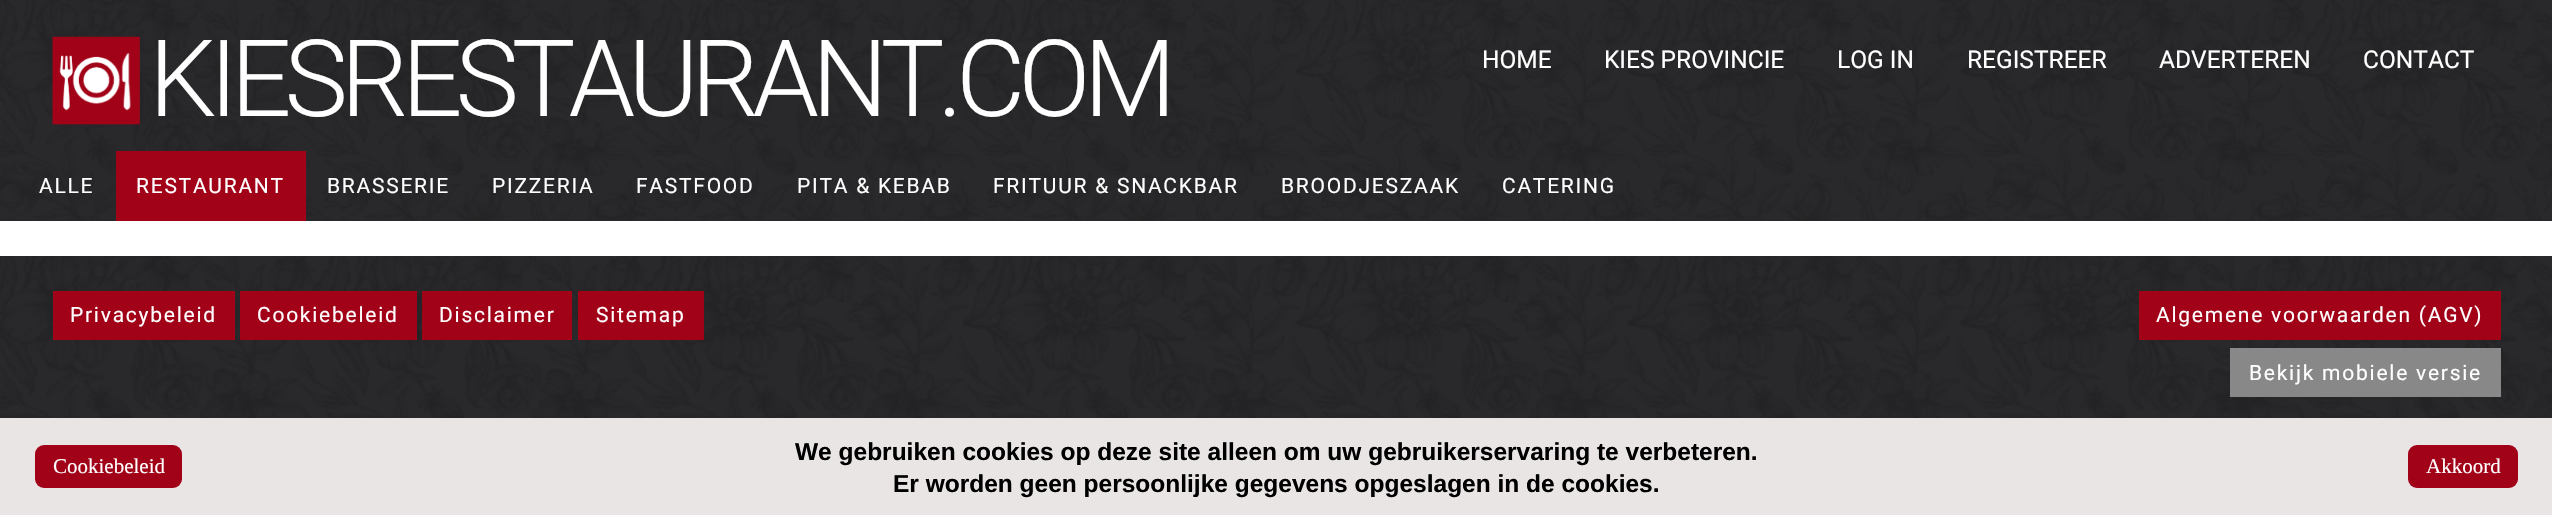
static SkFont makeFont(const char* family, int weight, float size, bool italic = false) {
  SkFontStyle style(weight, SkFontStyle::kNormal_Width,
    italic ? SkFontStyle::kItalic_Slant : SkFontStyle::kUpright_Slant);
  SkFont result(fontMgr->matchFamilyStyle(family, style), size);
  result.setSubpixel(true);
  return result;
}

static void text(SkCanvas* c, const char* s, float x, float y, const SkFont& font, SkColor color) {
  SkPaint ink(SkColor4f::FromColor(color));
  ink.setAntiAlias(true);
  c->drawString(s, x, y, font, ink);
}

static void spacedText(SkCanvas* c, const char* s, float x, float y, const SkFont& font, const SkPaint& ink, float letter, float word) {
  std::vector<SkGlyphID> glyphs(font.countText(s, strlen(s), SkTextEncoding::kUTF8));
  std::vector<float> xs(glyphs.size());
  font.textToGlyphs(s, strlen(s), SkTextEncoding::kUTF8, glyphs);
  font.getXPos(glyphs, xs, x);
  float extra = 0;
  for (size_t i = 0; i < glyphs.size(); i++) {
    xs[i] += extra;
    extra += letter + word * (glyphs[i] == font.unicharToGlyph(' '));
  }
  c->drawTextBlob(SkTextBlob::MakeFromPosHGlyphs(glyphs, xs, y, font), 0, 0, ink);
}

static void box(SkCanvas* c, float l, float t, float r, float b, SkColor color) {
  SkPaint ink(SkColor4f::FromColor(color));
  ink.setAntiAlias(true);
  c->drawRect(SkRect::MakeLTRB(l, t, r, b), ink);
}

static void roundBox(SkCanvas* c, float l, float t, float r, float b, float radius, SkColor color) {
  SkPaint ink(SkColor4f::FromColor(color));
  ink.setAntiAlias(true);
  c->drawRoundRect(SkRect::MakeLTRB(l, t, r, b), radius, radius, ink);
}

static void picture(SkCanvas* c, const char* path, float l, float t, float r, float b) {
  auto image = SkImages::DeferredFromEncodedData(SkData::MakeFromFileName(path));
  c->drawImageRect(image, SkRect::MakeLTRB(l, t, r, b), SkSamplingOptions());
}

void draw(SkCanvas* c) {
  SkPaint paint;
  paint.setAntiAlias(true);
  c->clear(0xffffffff);
  picture(c, "img_01.png", 0, 256, 2552, 418);
  box(c, 0, 220, 2552, 221, 0xff29292b);
  picture(c, "img_02.png", 0, 0, 2552, 220);
  picture(c, "img_03.png", 52, 36, 140, 125);
  SkFont face1 = makeFont("Roboto", 300, 106.75f);
  paint.setColor(0xffffffff);
  spacedText(c, "KIESRESTAURANT.COM", 149, 116, face1, paint, -7, 0);
  SkFont face2 = makeFont("Roboto", 400, 24.5f);
  text(c, "HOME", 1482, 68, face2, 0xffffffff);
  text(c, "KIES PROVINCIE", 1604, 68, face2, 0xffffffff);
  text(c, "LOG IN", 1837, 68, face2, 0xffffffff);
  text(c, "REGISTREER", 1967, 68, face2, 0xffffffff);
  text(c, "ADVERTEREN", 2159, 68, face2, 0xffffffff);
  text(c, "CONTACT", 2363, 68, face2, 0xffffffff);
  SkFont face3 = makeFont("Roboto", 400, 21);
  spacedText(c, "ALLE", 39, 193, face3, paint, 1.75f, 0);
  box(c, 116, 151, 306, 221, 0xffa10218);
  spacedText(c, "RESTAURANT", 136, 193, face3, paint, 1.75f, 0);
  spacedText(c, "BRASSERIE", 327, 193, face3, paint, 1.75f, 0);
  spacedText(c, "PIZZERIA", 492, 193, face3, paint, 1.75f, 0);
  spacedText(c, "FASTFOOD", 636, 193, face3, paint, 1.75f, 0);
  spacedText(c, "PITA & KEBAB", 797, 193, face3, paint, 1.75f, 0);
  spacedText(c, "FRITUUR & SNACKBAR", 993, 193, face3, paint, 1.75f, 0);
  spacedText(c, "BROODJESZAAK", 1281, 193, face3, paint, 1.75f, 0);
  spacedText(c, "CATERING", 1502, 193, face3, paint, 1.75f, 0);
  box(c, 0, 418, 2552, 515, 0xffe9e5e5);
  roundBox(c, 35, 445, 182, 488, 9, 0xffa10218);
  SkFont face4 = makeFont("Liberation Serif", 400, 21);
  text(c, "Cookiebeleid", 53, 473, face4, 0xffffffff);
  SkFont face5 = makeFont("Liberation Sans", 700, 24.5f);
  text(c, "We gebruiken cookies op deze site alleen om uw gebruikerservaring te verbeteren.", 795, 460, face5, 0xff000000);
  text(c, "Er worden geen persoonlijke gegevens opgeslagen in de cookies.", 893, 492, face5, 0xff000000);
  roundBox(c, 2408, 445, 2518, 488, 9, 0xffa10218);
  text(c, "Akkoord", 2426, 473, face4, 0xffffffff);
  box(c, 53, 291, 235, 340, 0xffa10218);
  spacedText(c, "Privacybeleid", 70, 322, face3, paint, 1.75f, 0);
  box(c, 240, 291, 417, 340, 0xffa10218);
  spacedText(c, "Cookiebeleid", 257, 322, face3, paint, 1.75f, 0);
  box(c, 422, 291, 572, 340, 0xffa10218);
  spacedText(c, "Disclaimer", 439, 322, face3, paint, 1.75f, 0);
  box(c, 578, 291, 704, 340, 0xffa10218);
  spacedText(c, "Sitemap", 596, 322, face3, paint, 1.75f, 0);
  box(c, 2139, 291, 2501, 340, 0xffa10218);
  spacedText(c, "Algemene voorwaarden (AGV)", 2156, 322, face3, paint, 1.75f, 0);
  box(c, 2230, 348, 2501, 397, 0xff888888);
  spacedText(c, "Bekijk mobiele versie", 2249, 380, face3, paint, 1.75f, 0);
}
